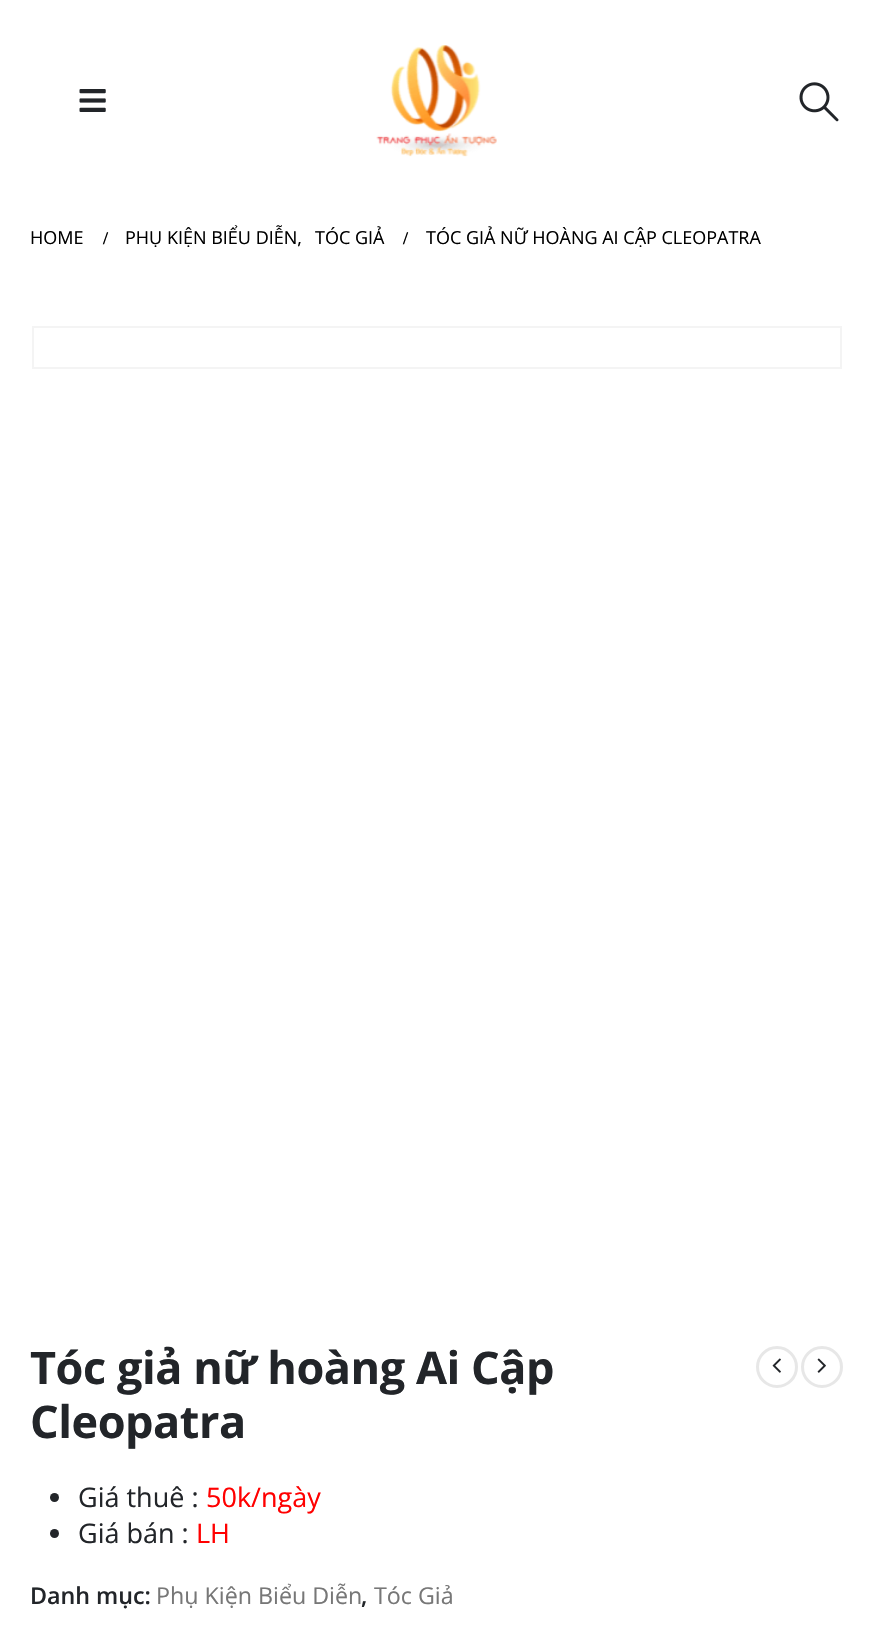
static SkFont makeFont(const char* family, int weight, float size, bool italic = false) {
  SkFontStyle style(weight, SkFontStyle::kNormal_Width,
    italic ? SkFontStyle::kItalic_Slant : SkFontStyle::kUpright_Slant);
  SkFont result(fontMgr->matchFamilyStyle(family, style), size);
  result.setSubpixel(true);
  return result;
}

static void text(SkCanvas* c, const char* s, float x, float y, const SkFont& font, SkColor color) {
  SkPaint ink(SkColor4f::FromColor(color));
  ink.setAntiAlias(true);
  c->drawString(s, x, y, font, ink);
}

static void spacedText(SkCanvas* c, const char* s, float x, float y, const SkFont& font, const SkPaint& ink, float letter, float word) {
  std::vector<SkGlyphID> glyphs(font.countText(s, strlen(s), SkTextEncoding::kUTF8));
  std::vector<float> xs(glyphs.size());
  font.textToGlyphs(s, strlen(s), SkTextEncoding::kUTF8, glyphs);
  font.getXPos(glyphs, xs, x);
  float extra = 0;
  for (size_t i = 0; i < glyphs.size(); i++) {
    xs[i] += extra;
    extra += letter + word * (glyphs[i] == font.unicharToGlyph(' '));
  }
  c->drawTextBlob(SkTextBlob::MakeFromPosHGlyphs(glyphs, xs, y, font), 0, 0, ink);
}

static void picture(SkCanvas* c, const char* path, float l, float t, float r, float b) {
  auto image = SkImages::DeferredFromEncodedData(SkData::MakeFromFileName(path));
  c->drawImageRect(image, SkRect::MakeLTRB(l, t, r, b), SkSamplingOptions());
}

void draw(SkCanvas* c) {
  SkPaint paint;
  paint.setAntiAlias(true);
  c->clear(0xffffffff);
  picture(c, "img_01.png", 79, 89, 106, 112);
  picture(c, "img_02.png", 376, 45, 497, 157);
  picture(c, "img_03.png", 799, 82, 839, 122);
  SkFont face1 = makeFont("Open Sans", 400, 18);
  text(c, "HOME", 30, 244, face1, 0xff000000);
  SkFont face2 = makeFont("Liberation Serif", 700, 18);
  text(c, "/", 103, 244, face2, 0xff000000);
  text(c, "PHỤ KIỆN BIỂU DIỄN,", 125, 244, face1, 0xff000000);
  text(c, "TÓC GIẢ", 315, 244, face1, 0xff000000);
  text(c, "/", 403, 244, face2, 0xff000000);
  text(c, "TÓC GIẢ NỮ HOÀNG AI CẬP CLEOPATRA", 426, 244, face1, 0xff000000);
  paint.setStyle(SkPaint::kStroke_Style);
  paint.setStrokeWidth(2);
  paint.setColor(0xfff4f4f4);
  c->drawRect(SkRect::MakeLTRB(33, 327, 841, 368), paint);
  SkFont face3 = makeFont("Open Sans", 700, 45);
  paint.setStyle(SkPaint::kFill_Style);
  paint.setColor(0xff222529);
  spacedText(c, "Tóc giả nữ hoàng Ai Cập", 30, 1384, face3, paint, -0.45f, 0);
  spacedText(c, "Cleopatra", 30, 1438, face3, paint, -0.45f, 0);
  paint.setStyle(SkPaint::kStroke_Style);
  paint.setStrokeWidth(3);
  paint.setColor(0xffe7e7e7);
  c->drawCircle(777, 1367, 19.5f, paint);
  picture(c, "img_04.png", 772, 1358, 781, 1373);
  c->drawCircle(822, 1367, 19.5f, paint);
  picture(c, "img_05.png", 817, 1358, 826, 1373);
  paint.setStyle(SkPaint::kFill_Style);
  paint.setColor(0xff222529);
  c->drawCircle(54.5f, 1497.5f, 4.5f, paint);
  SkFont face4 = makeFont("Open Sans", 400, 27);
  text(c, "Giá thuê :", 78, 1507, face4, 0xff222529);
  text(c, "50k/ngày", 206, 1507, face4, 0xffff0000);
  c->drawCircle(54.5f, 1533.5f, 4.5f, paint);
  text(c, "Giá bán :", 78, 1543, face4, 0xff222529);
  text(c, "LH", 196, 1543, face4, 0xffff0000);
  SkFont face5 = makeFont("Open Sans", 600, 23.25f);
  text(c, "Danh mục:", 30, 1604, face5, 0xff222529);
  SkFont face6 = makeFont("Open Sans", 400, 23.25f);
  text(c, "Phụ Kiện Biểu Diễn", 156, 1604, face6, 0xff777777);
  text(c, ",", 361, 1604, face5, 0xff222529);
  text(c, "Tóc Giả", 374, 1604, face6, 0xff777777);
}
